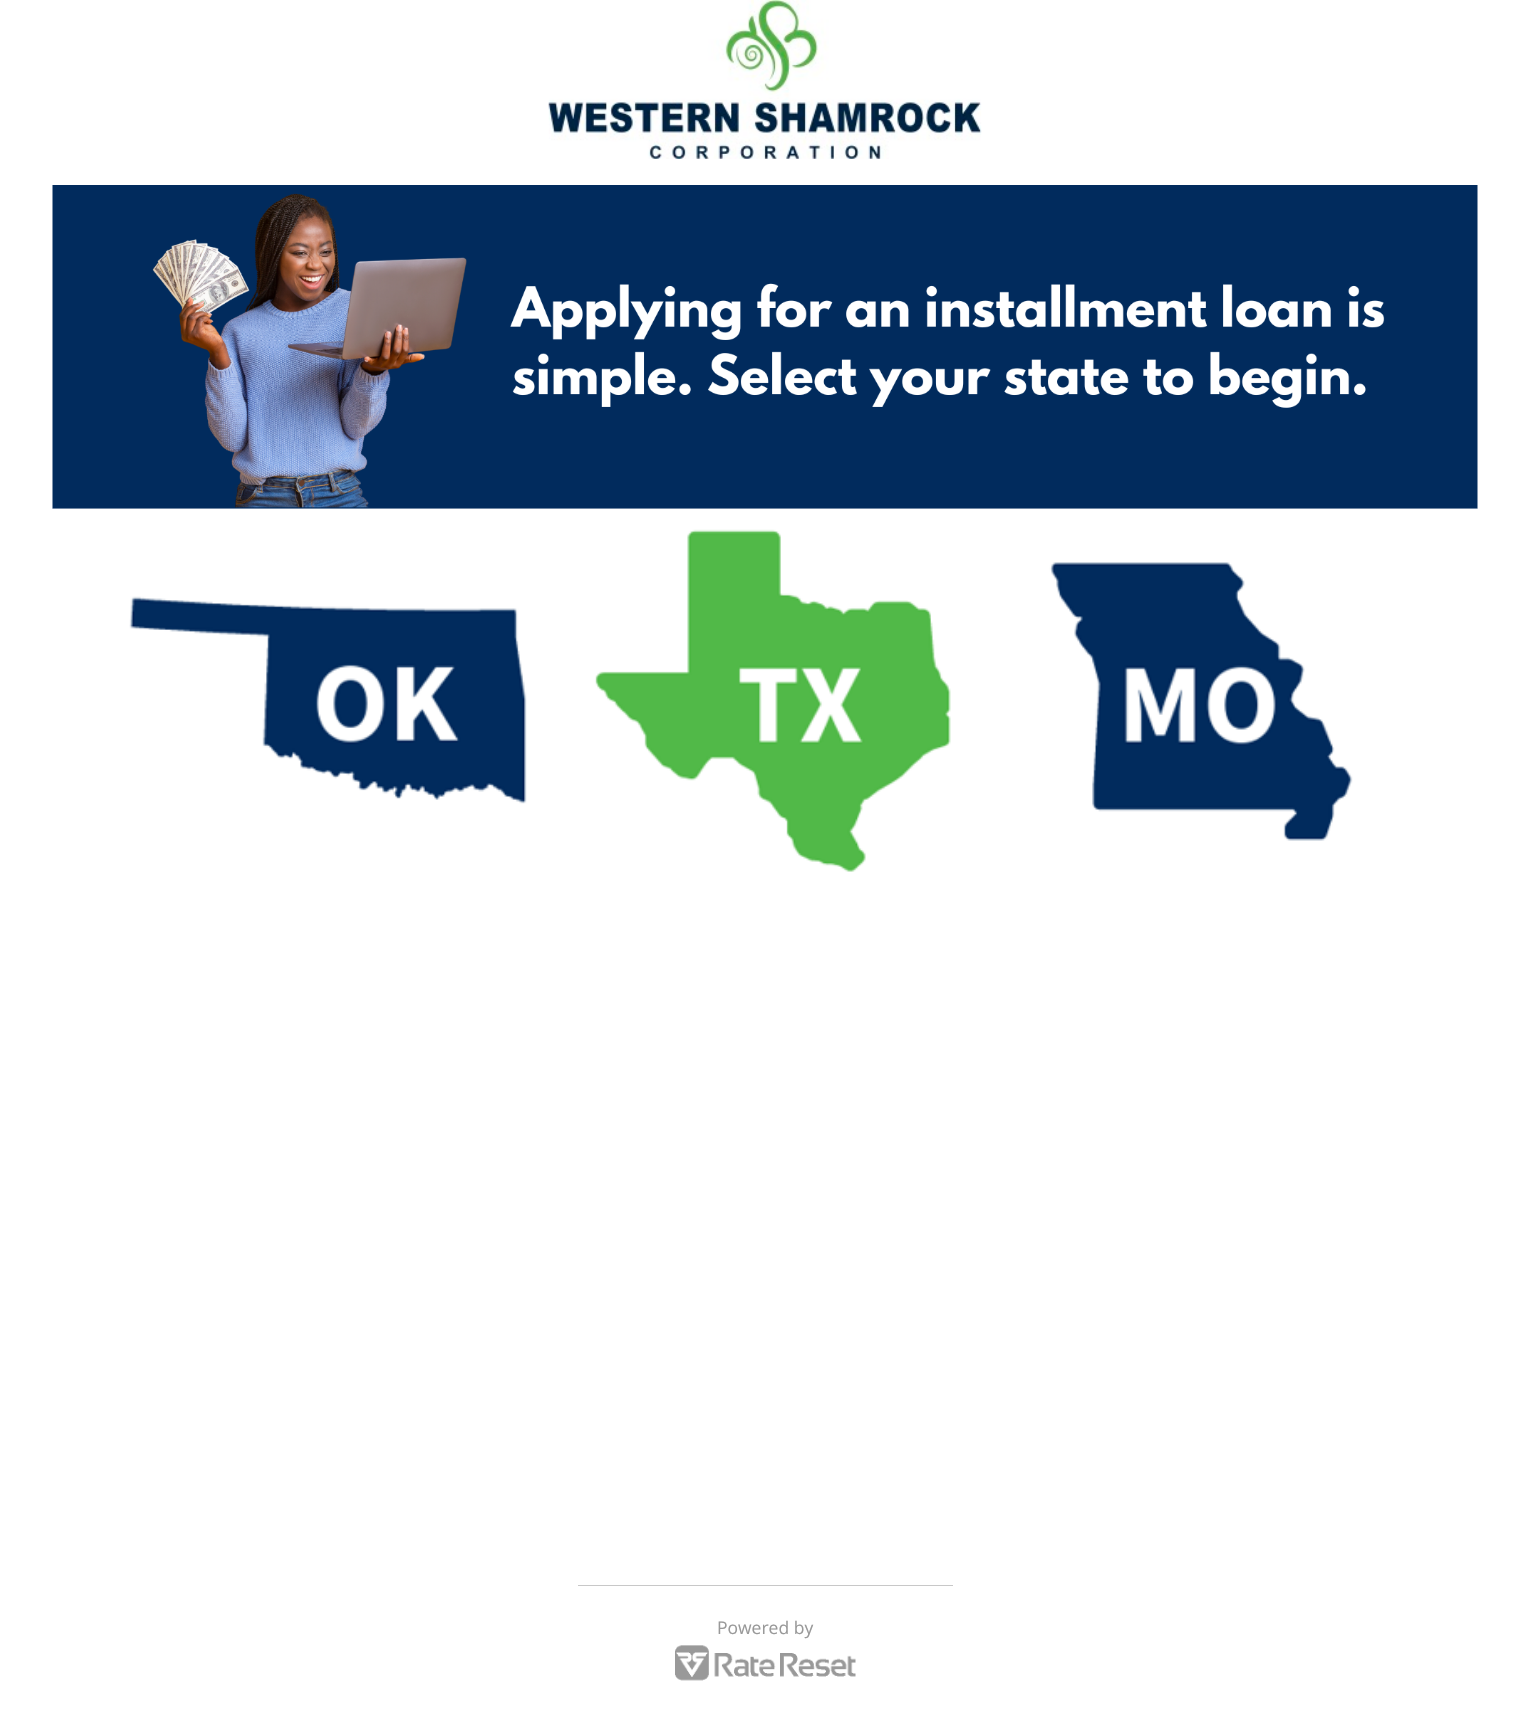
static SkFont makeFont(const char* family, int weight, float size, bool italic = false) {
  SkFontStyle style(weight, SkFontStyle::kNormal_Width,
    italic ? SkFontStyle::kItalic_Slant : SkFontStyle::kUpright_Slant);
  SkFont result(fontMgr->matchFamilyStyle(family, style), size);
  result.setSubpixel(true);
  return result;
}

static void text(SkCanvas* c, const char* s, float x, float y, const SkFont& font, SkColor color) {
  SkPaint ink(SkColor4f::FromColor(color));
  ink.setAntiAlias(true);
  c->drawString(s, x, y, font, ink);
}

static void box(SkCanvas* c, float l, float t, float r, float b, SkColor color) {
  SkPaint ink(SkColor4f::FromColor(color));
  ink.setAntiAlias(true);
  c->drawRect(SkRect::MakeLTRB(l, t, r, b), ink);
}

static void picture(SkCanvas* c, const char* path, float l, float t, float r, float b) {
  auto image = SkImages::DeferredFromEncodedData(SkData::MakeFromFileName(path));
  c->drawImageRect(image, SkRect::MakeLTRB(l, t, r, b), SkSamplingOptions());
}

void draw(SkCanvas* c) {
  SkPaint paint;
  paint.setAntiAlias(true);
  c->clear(0xffffffff);
  picture(c, "img_01.png", 548, 0, 982, 159);
  picture(c, "img_02.png", 52, 185, 1478, 509);
  picture(c, "img_03.png", 52, 508, 1478, 872);
  box(c, 578, 1585, 953, 1586, 0xffc8c8c8);
  SkFont face1 = makeFont("Open Sans", 400, 17.5f);
  text(c, "Powered by", 717, 1634, face1, 0xff999999);
  picture(c, "img_04.png", 675, 1645, 856, 1681);
}
